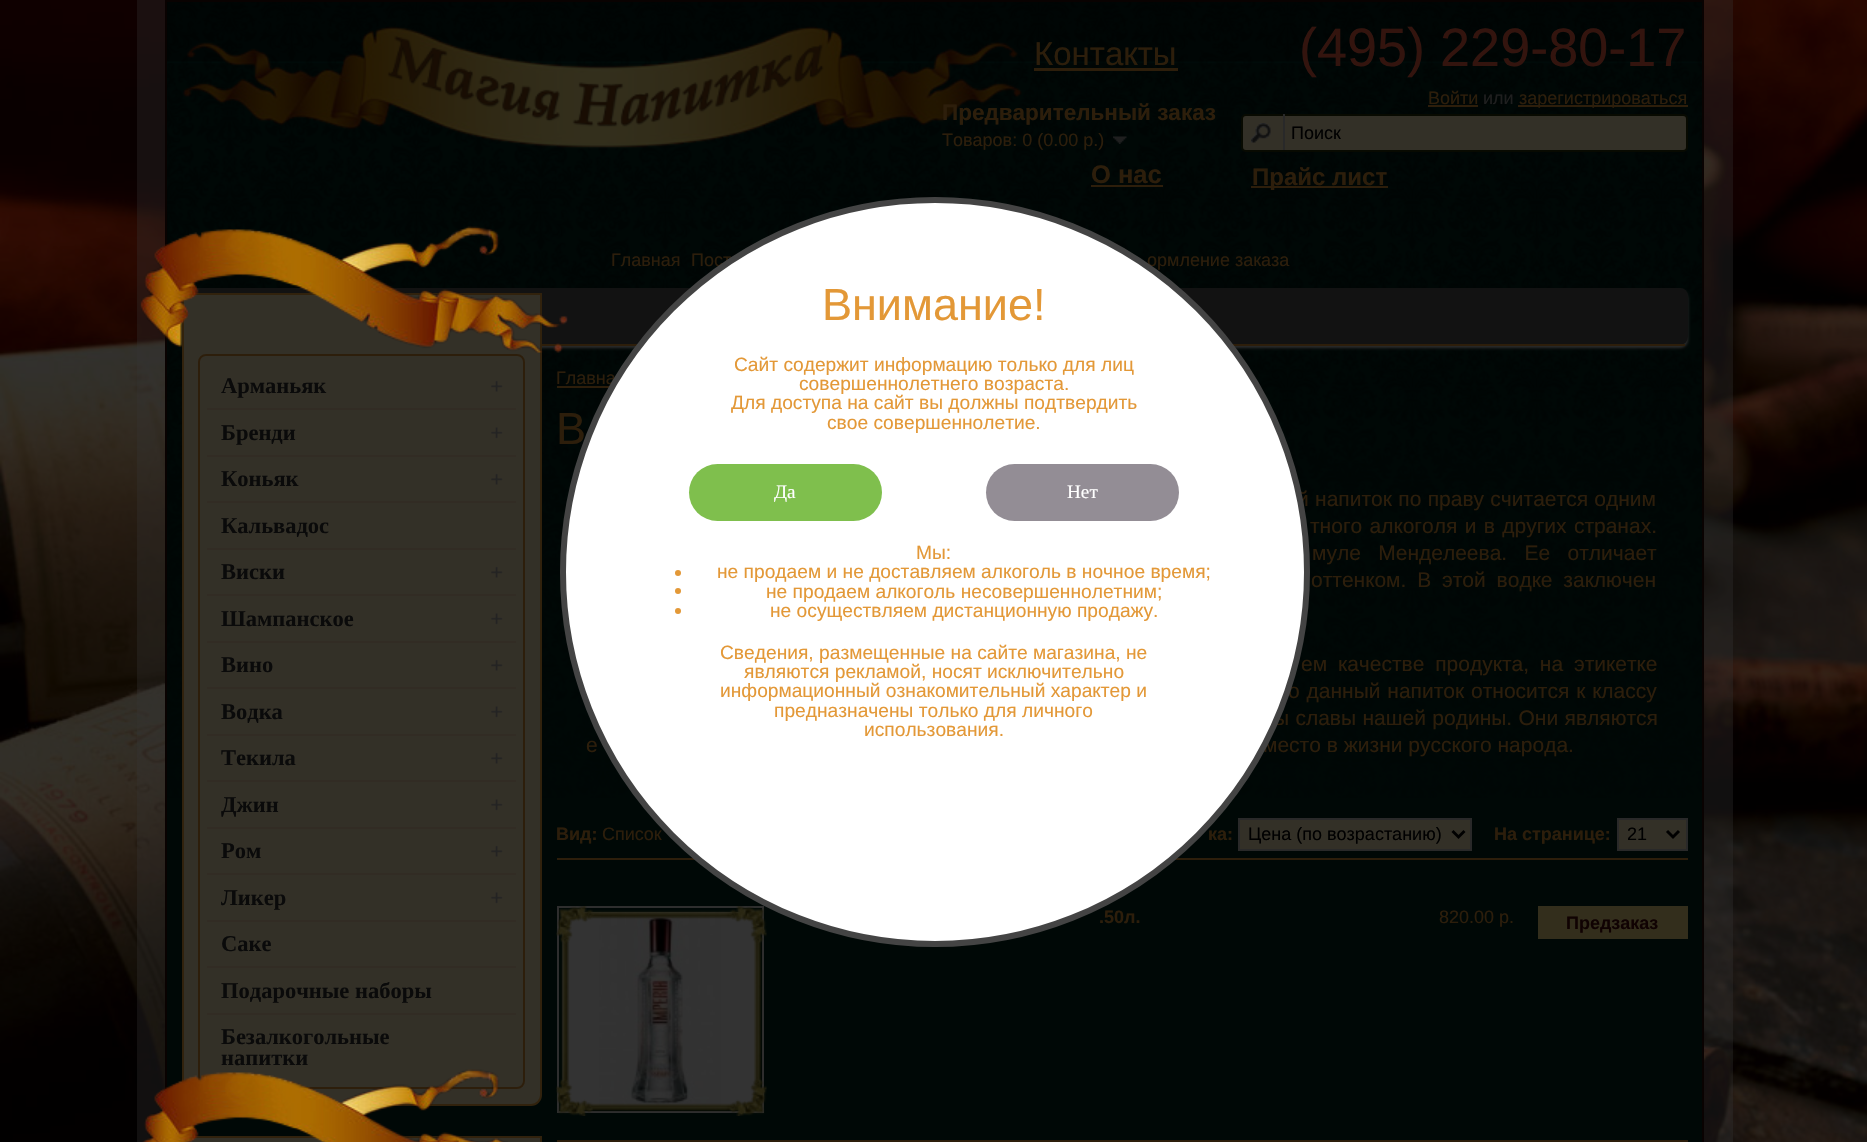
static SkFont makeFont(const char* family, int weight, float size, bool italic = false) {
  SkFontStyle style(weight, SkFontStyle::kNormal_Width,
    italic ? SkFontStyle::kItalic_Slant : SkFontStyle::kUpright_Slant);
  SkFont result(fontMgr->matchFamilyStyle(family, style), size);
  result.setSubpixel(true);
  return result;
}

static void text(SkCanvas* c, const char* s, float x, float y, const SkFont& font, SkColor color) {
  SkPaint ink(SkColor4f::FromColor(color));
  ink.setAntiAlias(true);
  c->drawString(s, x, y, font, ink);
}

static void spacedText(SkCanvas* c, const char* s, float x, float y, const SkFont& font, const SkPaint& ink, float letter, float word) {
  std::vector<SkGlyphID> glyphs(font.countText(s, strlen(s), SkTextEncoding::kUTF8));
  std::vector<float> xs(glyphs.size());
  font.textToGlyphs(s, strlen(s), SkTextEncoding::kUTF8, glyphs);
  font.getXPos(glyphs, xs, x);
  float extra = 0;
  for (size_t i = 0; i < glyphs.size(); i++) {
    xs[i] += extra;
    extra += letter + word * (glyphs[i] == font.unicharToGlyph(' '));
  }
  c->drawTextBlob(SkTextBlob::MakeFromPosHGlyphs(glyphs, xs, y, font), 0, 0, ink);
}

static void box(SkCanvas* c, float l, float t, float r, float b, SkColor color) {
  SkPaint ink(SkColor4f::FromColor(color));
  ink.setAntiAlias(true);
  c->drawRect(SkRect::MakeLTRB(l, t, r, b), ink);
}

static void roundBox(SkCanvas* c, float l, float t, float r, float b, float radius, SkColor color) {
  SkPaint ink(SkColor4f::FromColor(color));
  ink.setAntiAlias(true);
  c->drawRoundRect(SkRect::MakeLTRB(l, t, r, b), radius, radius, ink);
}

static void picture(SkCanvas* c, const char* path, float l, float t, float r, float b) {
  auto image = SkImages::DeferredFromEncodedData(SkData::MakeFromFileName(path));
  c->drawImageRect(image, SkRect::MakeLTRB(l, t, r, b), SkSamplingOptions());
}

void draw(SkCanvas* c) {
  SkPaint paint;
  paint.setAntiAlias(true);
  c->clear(0xffffffff);
  picture(c, "img_01.png", 0, 0, 1867, 1142);
  box(c, 137, 0, 1733, 1142, 0x4f333333);
  box(c, 167, 798, 1702, 1142, 0xff000806);
  picture(c, "img_02.png", 167, 2, 1702, 798);
  paint.setStyle(SkPaint::kStroke_Style);
  paint.setStrokeWidth(2);
  paint.setColor(0xff090201);
  c->drawRect(SkRect::MakeLTRB(166, 1, 1703, 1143), paint);
  picture(c, "img_03.png", 182, 26, 1022, 149);
  SkFont face1 = makeFont("Liberation Sans", 400, 33);
  text(c, "Контакты", 1034, 65, face1, 0xff2d1e0b);
  box(c, 1034, 68, 1178, 71, 0xff2d1e0b);
  SkFont face2 = makeFont("Liberation Sans", 400, 54);
  text(c, "(495) 229-80-17", 1299, 66, face2, 0xff33140e);
  SkFont face3 = makeFont("Liberation Sans", 400, 18);
  text(c, "Войти", 1428, 104, face3, 0xff2d1e0b);
  box(c, 1428, 105, 1478, 107, 0xff2d1e0b);
  text(c, "или", 1483, 104, face3, 0xff1f1f1f);
  box(c, 1518, 105, 1688, 107, 0xff2d1e0b);
  text(c, "зарегистрироваться", 1519, 104, face3, 0xff2d1e0b);
  SkFont face4 = makeFont("Liberation Sans", 700, 22.5f);
  text(c, "Предварительный заказ", 942, 120, face4, 0xff2d1e0b);
  text(c, "Товаров: 0 (0.00 р.)", 942, 146, face3, 0xff2d1e0b);
  picture(c, "img_04.png", 1113, 136, 1127, 144);
  paint.setStyle(SkPaint::kFill_Style);
  paint.setColor(0xff333027);
  c->drawRoundRect(SkRect::MakeLTRB(1242, 115, 1687, 151), 4, 4, paint);
  paint.setStyle(SkPaint::kStroke_Style);
  paint.setColor(0xff080a01);
  c->drawRoundRect(SkRect::MakeLTRB(1242, 115, 1687, 151), 4, 4, paint);
  picture(c, "img_05.png", 1251, 123, 1271, 143);
  box(c, 1283, 114, 1285, 150, 0xff292929);
  text(c, "Поиск", 1291, 139, face3, 0xff000000);
  SkFont face5 = makeFont("Liberation Sans", 700, 25.5f);
  text(c, "О нас", 1091, 183, face5, 0xff2d1e0b);
  box(c, 1091, 185, 1163, 187, 0xff2d1e0b);
  box(c, 1251, 186, 1388, 188, 0xff2d1e0b);
  SkFont face6 = makeFont("Liberation Sans", 700, 24);
  text(c, "Прайс лист", 1252, 185, face6, 0xff2d1e0b);
  text(c, "Главная", 611, 266, face3, 0xff2d1e0b);
  text(c, "Пост", 691, 266, face3, 0xff2d1e0b);
  text(c, "ормление заказа", 1147, 266, face3, 0xff2d1e0b);
  paint.setStyle(SkPaint::kFill_Style);
  paint.setColor(0xff2c2c2c);
  paint.setMaskFilter(SkMaskFilter::MakeBlur(kNormal_SkBlurStyle, 1.5f));
  c->drawRoundRect(SkRect::MakeLTRB(182, 291, 1688, 348), 8, 8, paint);
  paint.setMaskFilter(nullptr);
  roundBox(c, 182, 288, 1688, 345, 8, 0xff121212);
  box(c, 542, 344, 1685, 346, 0xff2d1e0b);
  paint.setColor(0xff333027);
  c->drawPath(SkPathBuilder().moveTo(183, 294).lineTo(541, 294).lineTo(541, 1095).cubicTo(541, 1100.5f, 536.5f, 1105, 531, 1105).lineTo(193, 1105).cubicTo(187.5f, 1105, 183, 1100.5f, 183, 1095).close().detach(), paint);
  paint.setStyle(SkPaint::kStroke_Style);
  paint.setColor(0xff31220d);
  c->drawPath(SkPathBuilder().moveTo(183, 294).lineTo(541, 294).lineTo(541, 1095).cubicTo(541, 1100.5f, 536.5f, 1105, 531, 1105).lineTo(193, 1105).cubicTo(187.5f, 1105, 183, 1100.5f, 183, 1095).close().detach(), paint);
  text(c, "Главна", 556, 384, face3, 0xff2d1e0b);
  box(c, 557, 386, 610, 388, 0xff2d1e0b);
  SkFont face7 = makeFont("Liberation Sans", 400, 45);
  text(c, "В", 556, 444, face7, 0xff2d1e0b);
  SkFont face8 = makeFont("Liberation Sans", 400, 21);
  paint.setStyle(SkPaint::kFill_Style);
  paint.setColor(0xff2d1e0b);
  spacedText(c, "й напиток по праву считается одним", 1297, 506, face8, paint, 0, 0.5f);
  spacedText(c, "ем качестве продукта, на этикетке", 1301, 671, face8, paint, 0, 5);
  spacedText(c, "о данный напиток относится к классу", 1288, 698, face8, paint, 0, 1);
  spacedText(c, "ы славы нашей родины. Они являются", 1274, 725, face8, paint, 0, 0.5f);
  text(c, "е", 586, 752, face8, 0xff2d1e0b);
  text(c, "место в жизни русского народа.", 1263, 752, face8, 0xff2d1e0b);
  box(c, 557, 858, 1688, 860, 0xff2d1e0b);
  SkFont face9 = makeFont("Liberation Sans", 700, 18);
  text(c, "Вид:", 556, 840, face9, 0xff2d1e0b);
  text(c, "Список", 602, 840, face3, 0xff2d1e0b);
  text(c, "ка:", 1208, 840, face9, 0xff2d1e0b);
  paint.setColor(0xff333027);
  c->drawRect(SkRect::MakeLTRB(1239, 819, 1471, 850), paint);
  paint.setStyle(SkPaint::kStroke_Style);
  paint.setColor(0xff292929);
  c->drawRect(SkRect::MakeLTRB(1239, 819, 1471, 850), paint);
  text(c, "Цена (по возрастанию)", 1248, 840, face3, 0xff000000);
  paint.setColor(0xff2e2e2e);
  c->drawRect(SkRect::MakeLTRB(558, 907, 763, 1112), paint);
  picture(c, "img_11.png", 562, 912, 758, 1107);
  picture(c, "img_10.png", 556, 906, 767, 1116);
  text(c, ".50л.", 1099, 923, face9, 0xff2d1e0b);
  paint.setStyle(SkPaint::kFill_Style);
  paint.setColor(0xffffffff);
  c->drawCircle(935, 572, 372, paint);
  paint.setStyle(SkPaint::kStroke_Style);
  paint.setStrokeWidth(6);
  paint.setColor(0xff444444);
  c->drawCircle(935, 572, 372, paint);
  picture(c, "img_06.png", 140, 226, 568, 353);
  paint.setStrokeWidth(2);
  paint.setColor(0xff2d1e0b);
  c->drawRoundRect(SkRect::MakeLTRB(199, 355, 524, 1088), 7, 7, paint);
  SkFont face10 = makeFont("Liberation Serif", 700, 22.5f);
  text(c, "Арманьяк", 221, 393, face10, 0xff0a0a0a);
  picture(c, "img_07.png", 491, 380, 503, 392);
  box(c, 207, 408, 516, 410, 0xff322c24);
  text(c, "Бренди", 221, 440, face10, 0xff0a0a0a);
  picture(c, "img_08.png", 491, 427, 503, 439);
  box(c, 207, 455, 516, 457, 0xff322c24);
  text(c, "Коньяк", 221, 486, face10, 0xff0a0a0a);
  picture(c, "img_07.png", 491, 473, 503, 485);
  box(c, 207, 501, 516, 503, 0xff322c24);
  text(c, "Кальвадос", 221, 533, face10, 0xff0a0a0a);
  box(c, 207, 548, 516, 550, 0xff322c24);
  text(c, "Виски", 221, 579, face10, 0xff0a0a0a);
  picture(c, "img_07.png", 491, 566, 503, 578);
  box(c, 207, 594, 516, 596, 0xff322c24);
  text(c, "Шампанское", 221, 626, face10, 0xff0a0a0a);
  picture(c, "img_08.png", 491, 613, 503, 625);
  box(c, 207, 641, 516, 643, 0xff322c24);
  text(c, "Вино", 221, 672, face10, 0xff0a0a0a);
  picture(c, "img_07.png", 491, 659, 503, 671);
  box(c, 207, 687, 516, 689, 0xff322c24);
  text(c, "Водка", 221, 719, face10, 0xff0a0a0a);
  picture(c, "img_08.png", 491, 706, 503, 718);
  box(c, 207, 734, 516, 736, 0xff322c24);
  text(c, "Текила", 221, 765, face10, 0xff0a0a0a);
  picture(c, "img_07.png", 491, 752, 503, 764);
  box(c, 207, 780, 516, 782, 0xff322c24);
  text(c, "Джин", 221, 812, face10, 0xff0a0a0a);
  picture(c, "img_08.png", 491, 799, 503, 811);
  box(c, 207, 827, 516, 829, 0xff322c24);
  text(c, "Ром", 221, 858, face10, 0xff0a0a0a);
  picture(c, "img_07.png", 491, 845, 503, 857);
  box(c, 207, 873, 516, 875, 0xff322c24);
  text(c, "Ликер", 221, 905, face10, 0xff0a0a0a);
  picture(c, "img_08.png", 491, 892, 503, 904);
  box(c, 207, 920, 516, 922, 0xff322c24);
  text(c, "Саке", 221, 951, face10, 0xff0a0a0a);
  box(c, 207, 966, 516, 968, 0xff322c24);
  text(c, "Подарочные наборы", 221, 998, face10, 0xff0a0a0a);
  box(c, 207, 1013, 516, 1015, 0xff322c24);
  text(c, "Безалкогольные", 221, 1044, face10, 0xff0a0a0a);
  text(c, "напитки", 221, 1065, face10, 0xff0a0a0a);
  paint.setStyle(SkPaint::kFill_Style);
  paint.setColor(0xff333027);
  c->drawRect(SkRect::MakeLTRB(183, 1137, 541, 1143), paint);
  paint.setStyle(SkPaint::kStroke_Style);
  paint.setColor(0xff31220d);
  c->drawRect(SkRect::MakeLTRB(183, 1137, 541, 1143), paint);
  picture(c, "img_09.png", 142, 1069, 508, 1142);
  paint.setStyle(SkPaint::kFill_Style);
  paint.setColor(0xff2d1e0b);
  spacedText(c, "тного алкоголя и в других странах.", 1310, 533, face8, paint, 0, 1.5f);
  spacedText(c, "муле Менделеева. Ее отличает", 1312, 560, face8, paint, 0, 11.5f);
  spacedText(c, "оттенком. В этой водке заключен", 1311, 587, face8, paint, 0, 5);
  paint.setStyle(SkPaint::kStroke_Style);
  paint.setStrokeWidth(3);
  paint.setColor(0xff000000);
  c->drawPath(SkPathBuilder().moveTo(1452.5f, 831).lineTo(1458.5f, 837).lineTo(1464.5f, 831).detach(), paint);
  text(c, "На странице:", 1494, 840, face9, 0xff2d1e0b);
  paint.setStyle(SkPaint::kFill_Style);
  paint.setColor(0xff333027);
  c->drawRect(SkRect::MakeLTRB(1618, 819, 1687, 850), paint);
  paint.setStyle(SkPaint::kStroke_Style);
  paint.setStrokeWidth(2);
  paint.setColor(0xff292929);
  c->drawRect(SkRect::MakeLTRB(1618, 819, 1687, 850), paint);
  paint.setStrokeWidth(3);
  paint.setColor(0xff000000);
  c->drawPath(SkPathBuilder().moveTo(1667, 831).lineTo(1673, 837).lineTo(1679, 831).detach(), paint);
  c->save();
  c->clipRect(SkRect::MakeLTRB(1628, 822, 1659, 846));
  text(c, "21", 1627, 840, face3, 0xff000000);
  c->restore();
  text(c, "820.00 р.", 1439, 923, face3, 0xff2d1e0b);
  box(c, 1538, 906, 1688, 939, 0xff332e1c);
  text(c, "Предзаказ", 1566, 929, face9, 0xff100202);
  box(c, 557, 1140, 1688, 1142, 0xff2d1e0b);
  text(c, "Внимание!", 822, 320, face7, 0xffe39837);
  SkFont face11 = makeFont("Liberation Sans", 400, 19.2f);
  text(c, "Сайт содержит информацию только для лиц", 734, 371, face11, 0xffe39837);
  text(c, "совершеннолетнего возраста.", 799, 390, face11, 0xffe39837);
  text(c, "Для доступа на сайт вы должны подтвердить", 731, 409, face11, 0xffe39837);
  text(c, "свое совершеннолетие.", 827, 429, face11, 0xffe39837);
  roundBox(c, 689, 464, 882, 521, 28.5f, 0xff7fbf4d);
  SkFont face12 = makeFont("Liberation Serif", 400, 19.2f);
  text(c, "Да", 774, 498, face12, 0xffffffff);
  roundBox(c, 986, 464, 1179, 521, 28.5f, 0xff938d95);
  text(c, "Нет", 1067, 498, face12, 0xffffffff);
  text(c, "Мы:", 916, 559, face11, 0xffe39837);
  paint.setStyle(SkPaint::kFill_Style);
  paint.setColor(0xffe39837);
  c->drawCircle(678, 573, 3, paint);
  text(c, "не продаем и не доставляем алкоголь в ночное время;", 717, 578, face11, 0xffe39837);
  c->drawCircle(678, 591, 3, paint);
  text(c, "не продаем алкоголь несовершеннолетним;", 766, 598, face11, 0xffe39837);
  c->drawCircle(678, 611, 3, paint);
  text(c, "не осуществляем дистанционную продажу.", 770, 617, face11, 0xffe39837);
  text(c, "Сведения, размещенные на сайте магазина, не", 720, 659, face11, 0xffe39837);
  text(c, "являются рекламой, носят исключительно", 744, 678, face11, 0xffe39837);
  text(c, "информационный ознакомительный характер и", 720, 697, face11, 0xffe39837);
  text(c, "предназначены только для личного", 774, 717, face11, 0xffe39837);
  text(c, "использования.", 864, 736, face11, 0xffe39837);
}
